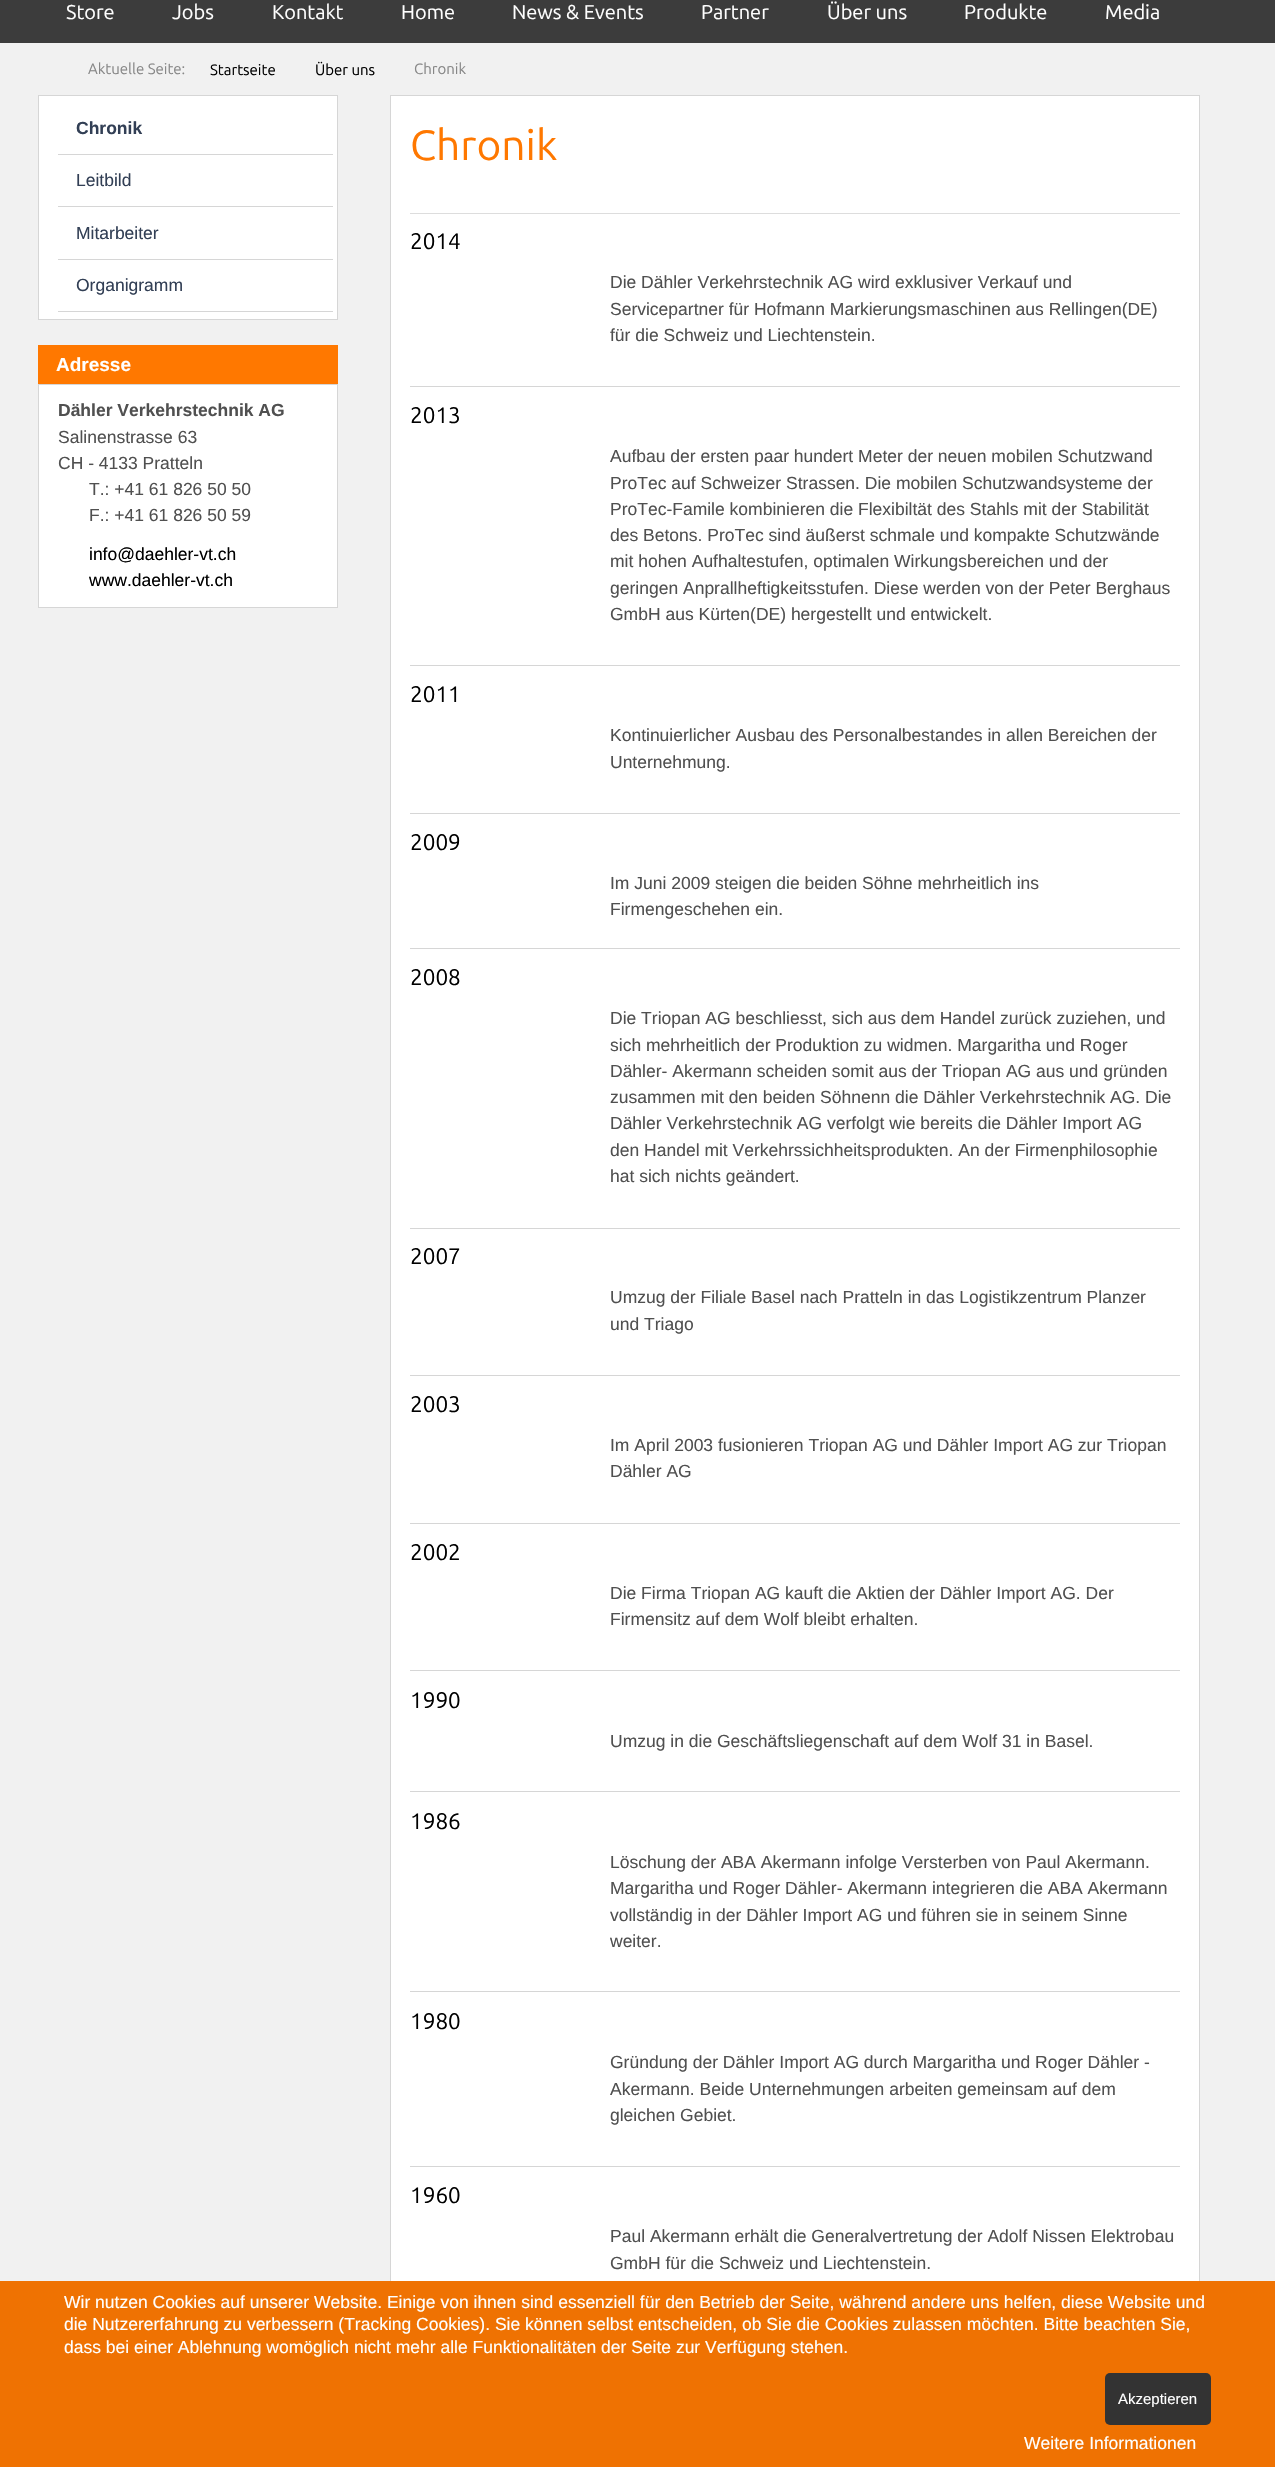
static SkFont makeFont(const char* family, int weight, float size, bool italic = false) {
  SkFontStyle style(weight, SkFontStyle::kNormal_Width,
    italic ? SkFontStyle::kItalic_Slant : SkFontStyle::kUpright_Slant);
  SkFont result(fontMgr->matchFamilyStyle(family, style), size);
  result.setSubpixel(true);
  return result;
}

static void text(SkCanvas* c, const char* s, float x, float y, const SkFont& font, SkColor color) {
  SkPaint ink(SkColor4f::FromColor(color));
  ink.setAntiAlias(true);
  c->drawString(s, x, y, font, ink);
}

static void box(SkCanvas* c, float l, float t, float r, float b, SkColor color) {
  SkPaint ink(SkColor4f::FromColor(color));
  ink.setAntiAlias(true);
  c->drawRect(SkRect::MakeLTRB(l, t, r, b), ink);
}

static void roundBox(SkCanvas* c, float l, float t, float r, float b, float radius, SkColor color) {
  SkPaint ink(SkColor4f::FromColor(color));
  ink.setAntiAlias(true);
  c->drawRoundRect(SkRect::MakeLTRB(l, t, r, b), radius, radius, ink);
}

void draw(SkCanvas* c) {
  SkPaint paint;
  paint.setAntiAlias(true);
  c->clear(0xfff1f1f1);
  box(c, 0, 0, 1275, 43, 0xff3c3c3c);
  SkFont face1 = makeFont("Ubuntu", 400, 20);
  text(c, "Store", 66, 19, face1, 0xffffffff);
  text(c, "Jobs", 172, 19, face1, 0xffffffff);
  text(c, "Kontakt", 272, 19, face1, 0xffffffff);
  text(c, "Home", 401, 19, face1, 0xffffffff);
  text(c, "News & Events", 512, 19, face1, 0xffffffff);
  text(c, "Partner", 701, 19, face1, 0xffffffff);
  text(c, "Über uns", 827, 19, face1, 0xffffffff);
  text(c, "Produkte", 964, 19, face1, 0xffffffff);
  text(c, "Media", 1105, 19, face1, 0xffffffff);
  SkFont face2 = makeFont("Ubuntu", 400, 15);
  text(c, "Aktuelle Seite:", 88, 74, face2, 0xff888888);
  text(c, "Startseite", 210, 75, face2, 0xff000000);
  text(c, "Über uns", 315, 75, face2, 0xff000000);
  text(c, "Chronik", 414, 74, face2, 0xff888888);
  paint.setColor(0xffffffff);
  c->drawRect(SkRect::MakeLTRB(38.5f, 95.5f, 337.5f, 319.5f), paint);
  paint.setStyle(SkPaint::kStroke_Style);
  paint.setStrokeWidth(1);
  paint.setColor(0xffd6d6d6);
  c->drawRect(SkRect::MakeLTRB(38.5f, 95.5f, 337.5f, 319.5f), paint);
  box(c, 58, 154, 333, 155, 0xffd6d6d6);
  SkFont face3 = makeFont("Liberation Sans", 700, 17.5f);
  text(c, "Chronik", 76, 134, face3, 0xff323f55);
  box(c, 58, 206, 333, 207, 0xffd6d6d6);
  SkFont face4 = makeFont("Liberation Sans", 400, 17.5f);
  text(c, "Leitbild", 76, 186, face4, 0xff323f55);
  box(c, 58, 259, 333, 260, 0xffd6d6d6);
  text(c, "Mitarbeiter", 76, 239, face4, 0xff323f55);
  box(c, 58, 311, 333, 312, 0xffd6d6d6);
  text(c, "Organigramm", 76, 291, face4, 0xff323f55);
  box(c, 38, 345, 338, 384, 0xffff7800);
  SkFont face5 = makeFont("Liberation Sans", 700, 19);
  text(c, "Adresse", 56, 371, face5, 0xffffffff);
  paint.setStyle(SkPaint::kFill_Style);
  paint.setColor(0xffffffff);
  c->drawRect(SkRect::MakeLTRB(38.5f, 384.5f, 337.5f, 607.5f), paint);
  paint.setStyle(SkPaint::kStroke_Style);
  paint.setColor(0xffd6d6d6);
  c->drawRect(SkRect::MakeLTRB(38.5f, 384.5f, 337.5f, 607.5f), paint);
  text(c, "Dähler Verkehrstechnik AG", 58, 416, face3, 0xff505050);
  text(c, "Salinenstrasse 63", 58, 443, face4, 0xff505050);
  text(c, "CH - 4133 Pratteln", 58, 469, face4, 0xff505050);
  text(c, "T.: +41 61 826 50 50", 89, 495, face4, 0xff505050);
  text(c, "F.: +41 61 826 50 59", 89, 521, face4, 0xff505050);
  text(c, "info@daehler-vt.ch", 89, 560, face4, 0xff000000);
  text(c, "www.daehler-vt.ch", 89, 586, face4, 0xff000000);
  box(c, 391, 96, 1199, 2281, 0xffffffff);
  c->drawRect(SkRect::MakeLTRB(390.5f, 95.5f, 1199.5f, 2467.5f), paint);
  SkFont face6 = makeFont("Ubuntu", 400, 42.5f);
  text(c, "Chronik", 410, 160, face6, 0xffff7800);
  box(c, 410, 213, 1180, 214, 0xffdddddd);
  box(c, 410, 386, 1180, 387, 0xffd6d6d6);
  SkFont face7 = makeFont("Ubuntu", 400, 22.5f);
  text(c, "2014", 410, 249, face7, 0xff000000);
  text(c, "Die Dähler Verkehrstechnik AG wird exklusiver Verkauf und", 610, 288, face4, 0xff505050);
  text(c, "Servicepartner für Hofmann Markierungsmaschinen aus Rellingen(DE)", 610, 315, face4, 0xff505050);
  text(c, "für die Schweiz und Liechtenstein.", 610, 341, face4, 0xff505050);
  box(c, 410, 665, 1180, 666, 0xffd6d6d6);
  text(c, "2013", 410, 423, face7, 0xff000000);
  text(c, "Aufbau der ersten paar hundert Meter der neuen mobilen Schutzwand", 610, 462, face4, 0xff505050);
  text(c, "ProTec auf Schweizer Strassen. Die mobilen Schutzwandsysteme der", 610, 489, face4, 0xff505050);
  text(c, "ProTec-Famile kombinieren die Flexibiltät des Stahls mit der Stabilität", 610, 515, face4, 0xff505050);
  text(c, "des Betons. ProTec sind äußerst schmale und kompakte Schutzwände", 610, 541, face4, 0xff505050);
  text(c, "mit hohen Aufhaltestufen, optimalen Wirkungsbereichen und der", 610, 567, face4, 0xff505050);
  text(c, "geringen Anprallheftigkeitsstufen. Diese werden von der Peter Berghaus", 610, 594, face4, 0xff505050);
  text(c, "GmbH aus Kürten(DE) hergestellt und entwickelt.", 610, 620, face4, 0xff505050);
  box(c, 410, 813, 1180, 814, 0xffd6d6d6);
  text(c, "2011", 410, 702, face7, 0xff000000);
  text(c, "Kontinuierlicher Ausbau des Personalbestandes in allen Bereichen der", 610, 741, face4, 0xff505050);
  text(c, "Unternehmung.", 610, 768, face4, 0xff505050);
  box(c, 410, 948, 1180, 949, 0xffd6d6d6);
  text(c, "2009", 410, 850, face7, 0xff000000);
  text(c, "Im Juni 2009 steigen die beiden Söhne mehrheitlich ins", 610, 889, face4, 0xff505050);
  text(c, "Firmengeschehen ein.", 610, 915, face4, 0xff505050);
  box(c, 410, 1228, 1180, 1229, 0xffd6d6d6);
  text(c, "2008", 410, 985, face7, 0xff000000);
  text(c, "Die Triopan AG beschliesst, sich aus dem Handel zurück zuziehen, und", 610, 1024, face4, 0xff505050);
  text(c, "sich mehrheitlich der Produktion zu widmen. Margaritha und Roger", 610, 1051, face4, 0xff505050);
  text(c, "Dähler- Akermann scheiden somit aus der Triopan AG aus und gründen", 610, 1077, face4, 0xff505050);
  text(c, "zusammen mit den beiden Söhnenn die Dähler Verkehrstechnik AG. Die", 610, 1103, face4, 0xff505050);
  text(c, "Dähler Verkehrstechnik AG verfolgt wie bereits die Dähler Import AG", 610, 1129, face4, 0xff505050);
  text(c, "den Handel mit Verkehrssichheitsprodukten. An der Firmenphilosophie", 610, 1156, face4, 0xff505050);
  text(c, "hat sich nichts geändert.", 610, 1182, face4, 0xff505050);
  box(c, 410, 1375, 1180, 1376, 0xffd6d6d6);
  text(c, "2007", 410, 1264, face7, 0xff000000);
  text(c, "Umzug der Filiale Basel nach Pratteln in das Logistikzentrum Planzer", 610, 1303, face4, 0xff505050);
  text(c, "und Triago", 610, 1330, face4, 0xff505050);
  box(c, 410, 1523, 1180, 1524, 0xffd6d6d6);
  text(c, "2003", 410, 1412, face7, 0xff000000);
  text(c, "Im April 2003 fusionieren Triopan AG und Dähler Import AG zur Triopan", 610, 1451, face4, 0xff505050);
  text(c, "Dähler AG", 610, 1477, face4, 0xff505050);
  box(c, 410, 1670, 1180, 1671, 0xffd6d6d6);
  text(c, "2002", 410, 1560, face7, 0xff000000);
  text(c, "Die Firma Triopan AG kauft die Aktien der Dähler Import AG. Der", 610, 1599, face4, 0xff505050);
  text(c, "Firmensitz auf dem Wolf bleibt erhalten.", 610, 1625, face4, 0xff505050);
  box(c, 410, 1791, 1180, 1792, 0xffd6d6d6);
  text(c, "1990", 410, 1708, face7, 0xff000000);
  text(c, "Umzug in die Geschäftsliegenschaft auf dem Wolf 31 in Basel.", 610, 1747, face4, 0xff505050);
  box(c, 410, 1991, 1180, 1992, 0xffd6d6d6);
  text(c, "1986", 410, 1829, face7, 0xff000000);
  text(c, "Löschung der ABA Akermann infolge Versterben von Paul Akermann.", 610, 1868, face4, 0xff505050);
  text(c, "Margaritha und Roger Dähler- Akermann integrieren die ABA Akermann", 610, 1894, face4, 0xff505050);
  text(c, "vollständig in der Dähler Import AG und führen sie in seinem Sinne", 610, 1921, face4, 0xff505050);
  text(c, "weiter.", 610, 1947, face4, 0xff505050);
  box(c, 410, 2166, 1180, 2167, 0xffd6d6d6);
  text(c, "1980", 410, 2029, face7, 0xff000000);
  text(c, "Gründung der Dähler Import AG durch Margaritha und Roger Dähler -", 610, 2068, face4, 0xff505050);
  text(c, "Akermann. Beide Unternehmungen arbeiten gemeinsam auf dem", 610, 2095, face4, 0xff505050);
  text(c, "gleichen Gebiet.", 610, 2121, face4, 0xff505050);
  text(c, "1960", 410, 2203, face7, 0xff000000);
  text(c, "Paul Akermann erhält die Generalvertretung der Adolf Nissen Elektrobau", 610, 2242, face4, 0xff505050);
  text(c, "GmbH für die Schweiz und Liechtenstein.", 610, 2269, face4, 0xff505050);
  box(c, 0, 2281, 1275, 2467, 0xffef7202);
  text(c, "Wir nutzen Cookies auf unserer Website. Einige von ihnen sind essenziell für den Betrieb der Seite, während andere uns helfen, diese Website und", 64, 2308, face4, 0xffffffff);
  text(c, "die Nutzererfahrung zu verbessern (Tracking Cookies). Sie können selbst entscheiden, ob Sie die Cookies zulassen möchten. Bitte beachten Sie,", 64, 2330, face4, 0xffffffff);
  text(c, "dass bei einer Ablehnung womöglich nicht mehr alle Funktionalitäten der Seite zur Verfügung stehen.", 64, 2353, face4, 0xffffffff);
  roundBox(c, 1105, 2373, 1211, 2425, 5, 0xff333333);
  SkFont face8 = makeFont("Liberation Sans", 400, 15);
  text(c, "Akzeptieren", 1118, 2404, face8, 0xffffffff);
  text(c, "Weitere Informationen", 1024, 2449, face4, 0xffffffff);
}
